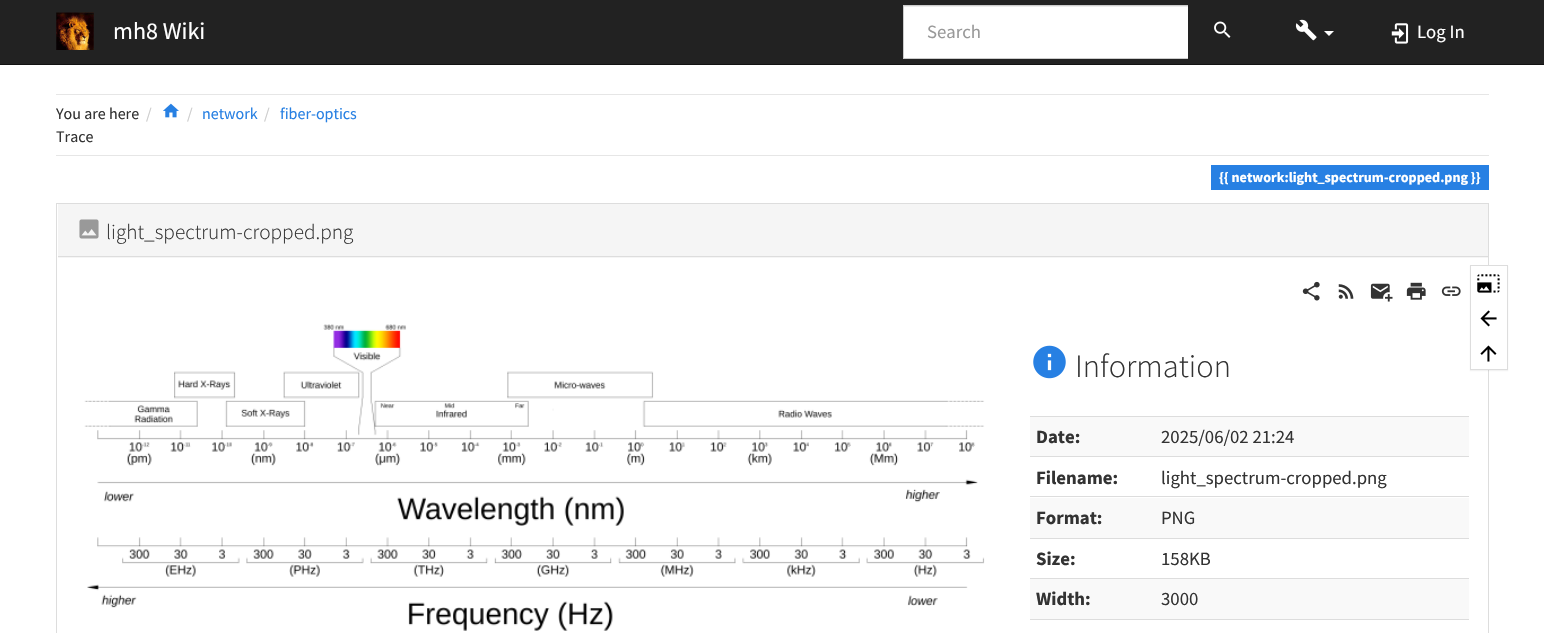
static SkFont makeFont(const char* family, int weight, float size, bool italic = false) {
  SkFontStyle style(weight, SkFontStyle::kNormal_Width,
    italic ? SkFontStyle::kItalic_Slant : SkFontStyle::kUpright_Slant);
  SkFont result(fontMgr->matchFamilyStyle(family, style), size);
  result.setSubpixel(true);
  return result;
}

static void text(SkCanvas* c, const char* s, float x, float y, const SkFont& font, SkColor color) {
  SkPaint ink(SkColor4f::FromColor(color));
  ink.setAntiAlias(true);
  c->drawString(s, x, y, font, ink);
}

static void box(SkCanvas* c, float l, float t, float r, float b, SkColor color) {
  SkPaint ink(SkColor4f::FromColor(color));
  ink.setAntiAlias(true);
  c->drawRect(SkRect::MakeLTRB(l, t, r, b), ink);
}

static void picture(SkCanvas* c, const char* path, float l, float t, float r, float b) {
  auto image = SkImages::DeferredFromEncodedData(SkData::MakeFromFileName(path));
  c->drawImageRect(image, SkRect::MakeLTRB(l, t, r, b), SkSamplingOptions());
}

void draw(SkCanvas* c) {
  SkPaint paint;
  paint.setAntiAlias(true);
  c->clear(0xffffffff);
  box(c, 0, 0, 1544, 64, 0xff222222);
  box(c, 0, 64, 1544, 65, 0xff121212);
  picture(c, "img_01.png", 56, 12, 94, 50);
  SkFont face1 = makeFont("Source Sans Pro", 400, 24);
  text(c, "mh8 Wiki", 113, 39, face1, 0xffffffff);
  box(c, 904, 7, 1188, 58, 0xffffffff);
  box(c, 904, 6, 1188, 7, 0xffececec);
  paint.setStyle(SkPaint::kStroke_Style);
  paint.setStrokeWidth(1);
  paint.setColor(0xffcccccc);
  c->drawRect(SkRect::MakeLTRB(903.5f, 5.5f, 1188.5f, 58.5f), paint);
  SkFont face2 = makeFont("Source Sans Pro", 400, 18.75f);
  text(c, "Search", 927, 38, face2, 0xff999999);
  box(c, 1188, 5, 1189, 59, 0xff222222);
  picture(c, "img_02.png", 1214, 21, 1231, 38);
  picture(c, "img_03.png", 1295, 19, 1317, 41);
  paint.setStyle(SkPaint::kFill_Style);
  paint.setColor(0xffffffff);
  c->drawPath(SkPathBuilder().moveTo(1324, 31).lineTo(1334, 31).lineTo(1329, 36).close().detach(), paint);
  picture(c, "img_04.png", 1391, 23, 1409, 44);
  text(c, "Log In", 1417, 38, face2, 0xffffffff);
  box(c, 56, 94, 1489, 95, 0xffe6e6e6);
  SkFont face3 = makeFont("Source Sans Pro", 400, 16);
  text(c, "You are here", 56, 119, face3, 0xff333333);
  text(c, "/", 146, 119, face3, 0xffcccccc);
  picture(c, "img_05.png", 163, 103, 179, 118);
  text(c, "/", 187, 119, face3, 0xffcccccc);
  text(c, "network", 202, 119, face3, 0xff2780e3);
  text(c, "/", 264, 119, face3, 0xffcccccc);
  text(c, "fiber-optics", 280, 119, face3, 0xff2780e3);
  text(c, "Trace", 56, 142, face3, 0xff333333);
  box(c, 56, 155, 1489, 156, 0xffe6e6e6);
  box(c, 1211, 165, 1489, 190, 0xff2780e3);
  SkFont face4 = makeFont("Source Sans Pro", 700, 14.1f);
  text(c, "{{ network:light_spectrum-cropped.png }}", 1219, 182, face4, 0xffffffff);
  paint.setStyle(SkPaint::kStroke_Style);
  paint.setColor(0xffdddddd);
  c->drawRect(SkRect::MakeLTRB(56.5f, 203.5f, 1488.5f, 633.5f), paint);
  box(c, 58, 204, 1488, 258, 0xfff5f5f5);
  box(c, 58, 256, 1488, 257, 0xffdddddd);
  picture(c, "img_06.png", 79, 219, 99, 239);
  SkFont face5 = makeFont("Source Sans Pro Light", 300, 21.25f);
  text(c, "light_spectrum-cropped.png", 106, 239, face5, 0xff333333);
  picture(c, "img_07.png", 1302, 281, 1320, 301);
  picture(c, "img_08.png", 1338, 284, 1354, 299);
  picture(c, "img_09.png", 1370, 283, 1393, 302);
  picture(c, "img_10.png", 1406, 282, 1426, 300);
  picture(c, "img_11.png", 1441, 286, 1461, 296);
  picture(c, "img_12.png", 84, 324, 985, 631);
  picture(c, "img_13.png", 1033, 345, 1066, 379);
  SkFont face6 = makeFont("Source Sans Pro Light", 300, 32.5f);
  text(c, "Information", 1075, 377, face6, 0xff333333);
  box(c, 1030, 417, 1469, 456, 0xfff9f9f9);
  SkFont face7 = makeFont("Source Sans Pro", 700, 18.75f);
  text(c, "Date:", 1036, 443, face7, 0xff333333);
  box(c, 1030, 416, 1469, 417, 0xffdddddd);
  text(c, "2025/06/02 21:24", 1161, 443, face2, 0xff333333);
  text(c, "Filename:", 1036, 484, face7, 0xff333333);
  box(c, 1030, 456, 1469, 457, 0xffdddddd);
  text(c, "light_spectrum-cropped.png", 1161, 484, face2, 0xff333333);
  box(c, 1030, 498, 1469, 538, 0xfff9f9f9);
  text(c, "Format:", 1036, 524, face7, 0xff333333);
  box(c, 1030, 496, 1469, 497, 0xffdddddd);
  text(c, "PNG", 1161, 524, face2, 0xff333333);
  text(c, "Size:", 1036, 565, face7, 0xff333333);
  box(c, 1030, 538, 1469, 539, 0xffdddddd);
  text(c, "158KB", 1161, 565, face2, 0xff333333);
  box(c, 1030, 579, 1469, 619, 0xfff9f9f9);
  text(c, "Width:", 1036, 605, face7, 0xff333333);
  box(c, 1030, 578, 1469, 579, 0xffdddddd);
  text(c, "3000", 1161, 605, face2, 0xff333333);
  box(c, 1030, 619, 1469, 620, 0xffdddddd);
  paint.setStyle(SkPaint::kFill_Style);
  paint.setColor(0x0d000000);
  paint.setMaskFilter(SkMaskFilter::MakeBlur(kNormal_SkBlurStyle, 0.5f));
  c->drawRect(SkRect::MakeLTRB(1470, 266, 1508, 371), paint);
  paint.setMaskFilter(nullptr);
  paint.setColor(0xffffffff);
  c->drawRect(SkRect::MakeLTRB(1470.5f, 265.5f, 1507.5f, 369.5f), paint);
  paint.setStyle(SkPaint::kStroke_Style);
  paint.setColor(0xffdddddd);
  c->drawRect(SkRect::MakeLTRB(1470.5f, 265.5f, 1507.5f, 369.5f), paint);
  picture(c, "img_14.png", 1477, 274, 1500, 293);
  picture(c, "img_15.png", 1480, 310, 1497, 327);
  picture(c, "img_16.png", 1480, 345, 1497, 362);
}
